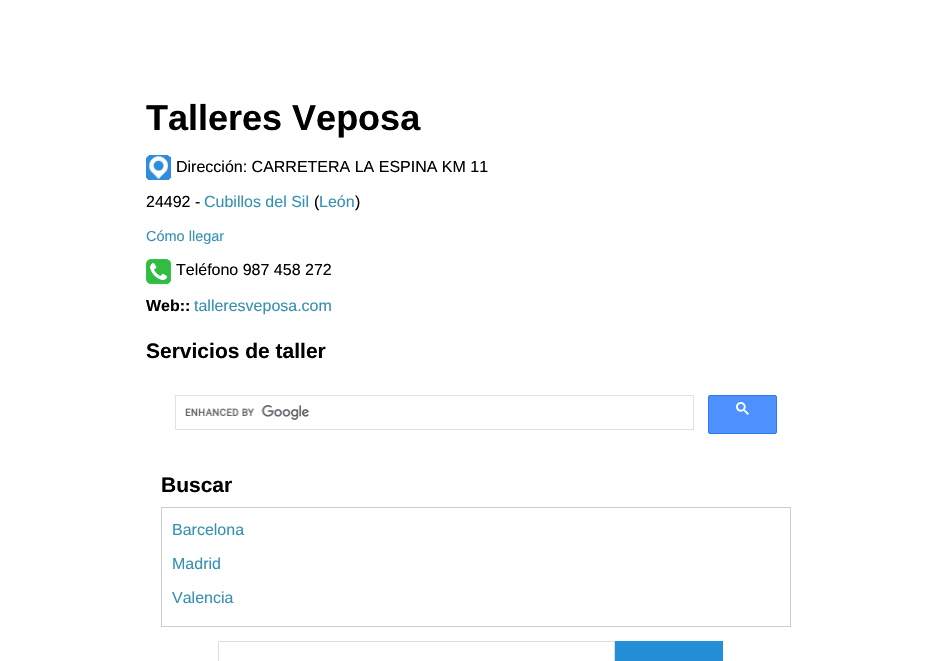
static SkFont makeFont(const char* family, int weight, float size, bool italic = false) {
  SkFontStyle style(weight, SkFontStyle::kNormal_Width,
    italic ? SkFontStyle::kItalic_Slant : SkFontStyle::kUpright_Slant);
  SkFont result(fontMgr->matchFamilyStyle(family, style), size);
  result.setSubpixel(true);
  return result;
}

static void text(SkCanvas* c, const char* s, float x, float y, const SkFont& font, SkColor color) {
  SkPaint ink(SkColor4f::FromColor(color));
  ink.setAntiAlias(true);
  c->drawString(s, x, y, font, ink);
}

static void box(SkCanvas* c, float l, float t, float r, float b, SkColor color) {
  SkPaint ink(SkColor4f::FromColor(color));
  ink.setAntiAlias(true);
  c->drawRect(SkRect::MakeLTRB(l, t, r, b), ink);
}

static void picture(SkCanvas* c, const char* path, float l, float t, float r, float b) {
  auto image = SkImages::DeferredFromEncodedData(SkData::MakeFromFileName(path));
  c->drawImageRect(image, SkRect::MakeLTRB(l, t, r, b), SkSamplingOptions());
}

void draw(SkCanvas* c) {
  SkPaint paint;
  paint.setAntiAlias(true);
  c->clear(0xffffffff);
  SkFont face1 = makeFont("Liberation Sans", 700, 36);
  text(c, "Talleres Veposa", 146, 130, face1, 0xff000000);
  picture(c, "img_01.png", 146, 155, 171, 180);
  SkFont face2 = makeFont("Liberation Sans", 400, 16);
  text(c, "Dirección: CARRETERA LA ESPINA KM 11", 176, 172, face2, 0xff000000);
  text(c, "24492 -", 146, 207, face2, 0xff000000);
  text(c, "Cubillos del Sil", 204, 207, face2, 0xff3490b5);
  text(c, "(", 314, 207, face2, 0xff000000);
  text(c, "León", 319, 207, face2, 0xff3490b5);
  text(c, ")", 355, 207, face2, 0xff000000);
  SkFont face3 = makeFont("Liberation Sans", 400, 14.5f);
  text(c, "Cómo llegar", 146, 241, face3, 0xff3490b5);
  picture(c, "img_02.png", 146, 259, 171, 284);
  text(c, "Teléfono 987 458 272", 176, 275, face2, 0xff000000);
  SkFont face4 = makeFont("Liberation Sans", 700, 16);
  text(c, "Web::", 146, 311, face4, 0xff000000);
  text(c, "talleresveposa.com", 194, 311, face2, 0xff3490b5);
  SkFont face5 = makeFont("Liberation Sans", 700, 21);
  text(c, "Servicios de taller", 146, 358, face5, 0xff000000);
  paint.setStyle(SkPaint::kStroke_Style);
  paint.setStrokeWidth(1);
  paint.setColor(0xffdfe1e5);
  c->drawRect(SkRect::MakeLTRB(175.5f, 395.5f, 693.5f, 429.5f), paint);
  picture(c, "img_03.png", 185, 405, 309, 420);
  paint.setStyle(SkPaint::kFill_Style);
  paint.setColor(0xff4d90fe);
  c->drawRoundRect(SkRect::MakeLTRB(708.5f, 395.5f, 776.5f, 433.5f), 1.5f, 1.5f, paint);
  paint.setStyle(SkPaint::kStroke_Style);
  paint.setColor(0xff3079ed);
  c->drawRoundRect(SkRect::MakeLTRB(708.5f, 395.5f, 776.5f, 433.5f), 1.5f, 1.5f, paint);
  picture(c, "img_04.png", 736, 402, 749, 415);
  text(c, "Buscar", 161, 492, face5, 0xff000000);
  paint.setColor(0xffcccccc);
  c->drawRect(SkRect::MakeLTRB(161.5f, 507.5f, 790.5f, 626.5f), paint);
  text(c, "Barcelona", 172, 535, face2, 0xff3490b5);
  text(c, "Madrid", 172, 569, face2, 0xff3490b5);
  text(c, "Valencia", 172, 603, face2, 0xff3490b5);
  paint.setColor(0xffdedede);
  c->drawRect(SkRect::MakeLTRB(218.5f, 641.5f, 614.5f, 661.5f), paint);
  box(c, 615, 641, 723, 661, 0xff248fd6);
}
